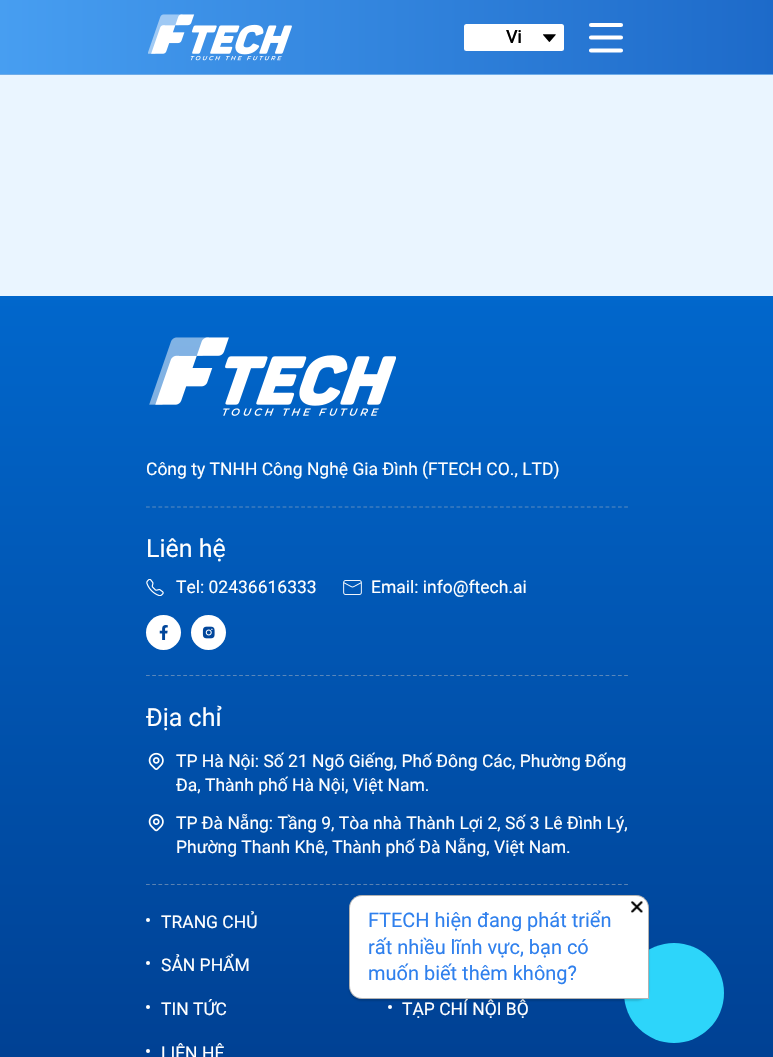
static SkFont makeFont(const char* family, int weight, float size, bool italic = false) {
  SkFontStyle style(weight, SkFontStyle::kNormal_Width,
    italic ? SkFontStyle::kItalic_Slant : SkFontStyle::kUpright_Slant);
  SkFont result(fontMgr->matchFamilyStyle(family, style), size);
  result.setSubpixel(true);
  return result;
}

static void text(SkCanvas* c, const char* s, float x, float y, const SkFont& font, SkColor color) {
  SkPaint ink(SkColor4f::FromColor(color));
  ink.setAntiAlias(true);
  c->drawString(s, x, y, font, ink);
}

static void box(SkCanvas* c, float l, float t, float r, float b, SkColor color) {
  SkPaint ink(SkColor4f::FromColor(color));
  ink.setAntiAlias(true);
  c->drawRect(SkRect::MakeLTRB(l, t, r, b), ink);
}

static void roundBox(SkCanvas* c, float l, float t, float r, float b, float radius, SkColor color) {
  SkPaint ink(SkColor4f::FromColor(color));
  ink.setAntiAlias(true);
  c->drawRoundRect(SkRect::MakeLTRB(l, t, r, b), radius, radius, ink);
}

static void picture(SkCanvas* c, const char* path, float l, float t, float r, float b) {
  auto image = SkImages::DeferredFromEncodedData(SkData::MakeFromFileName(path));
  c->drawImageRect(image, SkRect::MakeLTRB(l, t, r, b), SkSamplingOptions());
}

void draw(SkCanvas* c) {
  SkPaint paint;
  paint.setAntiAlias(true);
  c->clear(0xffeaf5ff);
  {
    const SkColor colors[] = {0xff479ef1, 0xff1d6ac9};
    const float stops[] = {0, 1};
    const SkPoint ends[] = {{0, 37}, {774, 37}};
    paint.setShader(SkGradientShader::MakeLinear(ends, colors, stops, 2, SkTileMode::kClamp));
    paint.setAlpha(255);
  }
  c->drawRect(SkRect::MakeLTRB(0, 0, 773, 74), paint);
  box(c, 0, 74, 773, 75, 0xff6face8);
  picture(c, "img_01.png", 148, 14, 292, 61);
  roundBox(c, 464, 24, 564, 51, 2.5f, 0xffffffff);
  SkFont face1 = makeFont("Roboto", 700, 17.5f);
  text(c, "Vi", 506, 43, face1, 0xff000000);
  picture(c, "img_02.png", 543, 34, 556, 42);
  paint.setStyle(SkPaint::kStroke_Style);
  paint.setStrokeWidth(4.1f);
  paint.setStrokeCap(SkPaint::kRound_Cap);
  paint.setShader(nullptr);
  paint.setColor(0xffffffff);
  c->drawPath(SkPathBuilder().moveTo(591, 25).lineTo(621, 25).moveTo(621, 37.5f).lineTo(591, 37.5f).moveTo(621, 50.5f).lineTo(591, 50.5f).detach(), paint);
  paint.setStyle(SkPaint::kFill_Style);
  {
    const SkColor colors[] = {0xff003b8b, 0xff0167cc};
    const float stops[] = {0, 1};
    const SkPoint ends[] = {{387, 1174}, {387, 296}};
    paint.setShader(SkGradientShader::MakeLinear(ends, colors, stops, 2, SkTileMode::kClamp));
    paint.setAlpha(255);
  }
  c->drawRect(SkRect::MakeLTRB(0, 296, 773, 1057), paint);
  picture(c, "img_03.png", 149, 337, 396, 416);
  SkFont face2 = makeFont("Roboto", 400, 17.5f);
  text(c, "Công ty TNHH Công Nghệ Gia Đình (FTECH CO., LTD)", 146, 475, face2, 0xffffffff);
  paint.setStyle(SkPaint::kStroke_Style);
  paint.setStrokeWidth(1.2f);
  paint.setStrokeCap(SkPaint::kButt_Cap);
  paint.setShader(nullptr);
  paint.setColor(0xff5a8bc0);
  paint.setPathEffect(SkDashPathEffect::Make({{3.75f, 2.46f}}, 0));
  c->drawPath(SkPathBuilder().moveTo(146, 507).lineTo(629, 507).detach(), paint);
  paint.setPathEffect(nullptr);
  SkFont face3 = makeFont("Roboto", 400, 25);
  text(c, "Liên hệ", 146, 557, face3, 0xffffffff);
  picture(c, "img_04.png", 146, 579, 164, 596);
  text(c, "Tel: 02436616333", 176, 593, face2, 0xffffffff);
  picture(c, "img_05.png", 343, 580, 362, 595);
  text(c, "Email: info@ftech.ai", 371, 593, face2, 0xffffffff);
  paint.setStyle(SkPaint::kFill_Style);
  paint.setColor(0xffffffff);
  c->drawCircle(163.5f, 632.5f, 17.5f, paint);
  picture(c, "img_06.png", 159, 625, 168, 640);
  c->drawCircle(208.5f, 632.5f, 17.5f, paint);
  picture(c, "img_07.png", 202, 626, 215, 639);
  paint.setStyle(SkPaint::kStroke_Style);
  paint.setColor(0xff5a87ba);
  paint.setPathEffect(SkDashPathEffect::Make({{3.75f, 2.46f}}, 0));
  c->drawPath(SkPathBuilder().moveTo(146, 675.5f).lineTo(629, 675.5f).detach(), paint);
  paint.setPathEffect(nullptr);
  text(c, "Địa chỉ", 146, 726, face3, 0xffffffff);
  picture(c, "img_08.png", 148, 752, 164, 770);
  text(c, "TP Hà Nội: Số 21 Ngõ Giếng, Phố Đông Các, Phường Đống", 176, 767, face2, 0xffffffff);
  text(c, "Đa, Thành phố Hà Nội, Việt Nam.", 176, 791, face2, 0xffffffff);
  picture(c, "img_09.png", 148, 814, 164, 832);
  text(c, "TP Đà Nẵng: Tầng 9, Tòa nhà Thành Lợi 2, Số 3 Lê Đình Lý,", 176, 829, face2, 0xffffffff);
  text(c, "Phường Thanh Khê, Thành phố Đà Nẵng, Việt Nam.", 176, 853, face2, 0xffffffff);
  paint.setColor(0xff5a82b2);
  paint.setPathEffect(SkDashPathEffect::Make({{3.75f, 2.46f}}, 0));
  c->drawPath(SkPathBuilder().moveTo(146, 884.5f).lineTo(629, 884.5f).detach(), paint);
  paint.setPathEffect(nullptr);
  paint.setStyle(SkPaint::kFill_Style);
  paint.setColor(0xffffffff);
  c->drawCircle(148, 920, 2, paint);
  text(c, "TRANG CHỦ", 161, 928, face2, 0xffffffff);
  c->drawCircle(148, 963, 2, paint);
  text(c, "SẢN PHẨM", 161, 971, face2, 0xffffffff);
  c->drawCircle(148, 1007, 2, paint);
  text(c, "TIN TỨC", 161, 1015, face2, 0xffffffff);
  c->drawCircle(390, 1007, 2, paint);
  text(c, "TẠP CHÍ NỘI BỘ", 402, 1015, face2, 0xffffffff);
  c->drawCircle(148, 1051, 2, paint);
  text(c, "LIÊN HỆ", 161, 1059, face2, 0xffffffff);
  paint.setColor(0xff2dd5fa);
  c->drawCircle(674, 993, 50, paint);
  paint.setColor(0x26000000);
  paint.setMaskFilter(SkMaskFilter::MakeBlur(kNormal_SkBlurStyle, 1));
  c->drawRoundRect(SkRect::MakeLTRB(349, 898, 649, 1001), 13, 13, paint);
  paint.setMaskFilter(nullptr);
  paint.setColor(0xffffffff);
  c->drawPath(SkPathBuilder().moveTo(362, 895).lineTo(636, 895).cubicTo(643, 895, 649, 901, 649, 908).lineTo(649, 999).lineTo(362, 999).cubicTo(355, 999, 349, 993, 349, 986).lineTo(349, 908).cubicTo(349, 901, 355, 895, 362, 895).close().detach(), paint);
  paint.setStyle(SkPaint::kStroke_Style);
  paint.setStrokeWidth(1);
  paint.setColor(0x4d000000);
  c->drawPath(SkPathBuilder().moveTo(362, 895.5f).lineTo(636, 895.5f).cubicTo(643, 895.5f, 648.5f, 901, 648.5f, 908).lineTo(648.5f, 998.5f).lineTo(362, 998.5f).cubicTo(355, 998.5f, 349.5f, 993, 349.5f, 986).lineTo(349.5f, 908).cubicTo(349.5f, 901, 355, 895.5f, 362, 895.5f).close().detach(), paint);
  picture(c, "img_10.png", 631, 901, 643, 913);
  SkFont face4 = makeFont("Roboto", 400, 20);
  text(c, "FTECH hiện đang phát triển", 368, 927, face4, 0xff2f80ed);
  text(c, "rất nhiều lĩnh vực, bạn có", 368, 954, face4, 0xff2f80ed);
  text(c, "muốn biết thêm không?", 368, 980, face4, 0xff2f80ed);
}
